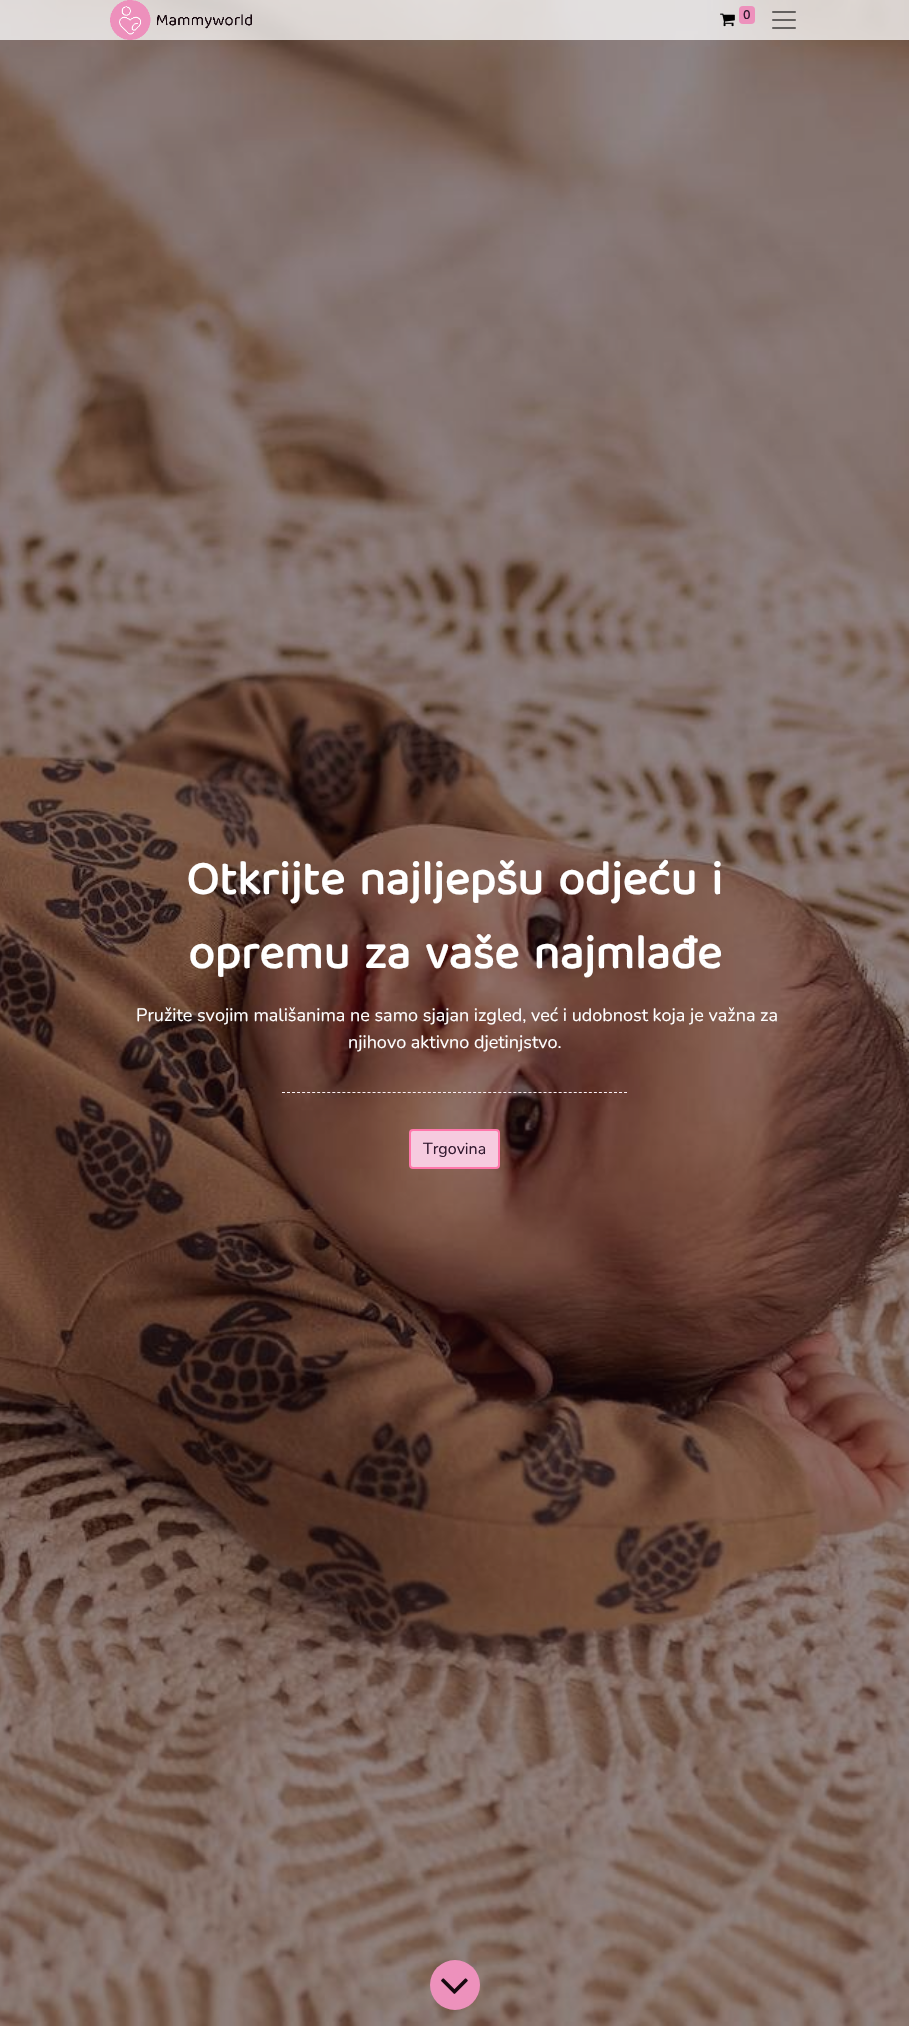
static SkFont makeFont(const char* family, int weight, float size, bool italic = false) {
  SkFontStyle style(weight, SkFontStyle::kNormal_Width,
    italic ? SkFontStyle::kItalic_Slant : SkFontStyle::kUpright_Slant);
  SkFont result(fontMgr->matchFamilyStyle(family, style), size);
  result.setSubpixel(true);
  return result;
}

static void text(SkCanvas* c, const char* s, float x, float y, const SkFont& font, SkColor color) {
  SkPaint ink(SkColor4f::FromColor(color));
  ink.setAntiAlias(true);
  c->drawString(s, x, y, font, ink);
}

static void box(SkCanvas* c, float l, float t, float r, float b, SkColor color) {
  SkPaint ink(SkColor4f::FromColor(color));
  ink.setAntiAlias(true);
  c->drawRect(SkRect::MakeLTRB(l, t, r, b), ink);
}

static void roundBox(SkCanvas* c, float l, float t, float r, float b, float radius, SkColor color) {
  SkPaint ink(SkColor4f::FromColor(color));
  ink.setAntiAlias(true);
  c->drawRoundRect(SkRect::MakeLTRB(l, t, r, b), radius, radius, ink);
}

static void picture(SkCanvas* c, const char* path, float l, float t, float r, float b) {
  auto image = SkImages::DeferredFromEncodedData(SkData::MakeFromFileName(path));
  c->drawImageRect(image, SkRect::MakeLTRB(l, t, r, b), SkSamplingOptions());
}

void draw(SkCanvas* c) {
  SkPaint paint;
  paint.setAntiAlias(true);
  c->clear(0xffffffff);
  picture(c, "img_04.png", 0, 0, 909, 2026);
  box(c, 0, 0, 909, 40, 0xbfffffff);
  picture(c, "img_01.png", 110, 0, 252, 40);
  picture(c, "img_02.png", 720, 13, 735, 27);
  roundBox(c, 739, 6, 755, 24, 4, 0xffed91bc);
  SkFont face1 = makeFont("Nunito", 700, 12);
  text(c, "0", 743, 19, face1, 0xff31192f);
  picture(c, "img_03.png", 772, 11, 796, 29);
  SkFont face2 = makeFont("Baloo Tamma 2", 700, 48);
  text(c, "Otkrijte najljepšu odjeću i", 186, 894, face2, 0xffffffff);
  text(c, "opremu za vaše najmlađe", 188, 968, face2, 0xffffffff);
  SkFont face3 = makeFont("Nunito", 200, 18);
  text(c, "Pružite svojim mališanima ne samo sjajan izgled, već i udobnost koja je važna za", 136, 1021, face3, 0xffffffff);
  text(c, "njihovo aktivno djetinjstvo.", 348, 1048, face3, 0xffffffff);
  paint.setStyle(SkPaint::kStroke_Style);
  paint.setStrokeWidth(1);
  paint.setColor(0xfffcf4f8);
  paint.setPathEffect(SkDashPathEffect::Make({{3, 2.03f}}, 0));
  c->drawPath(SkPathBuilder().moveTo(282, 1092.5f).lineTo(627, 1092.5f).detach(), paint);
  paint.setPathEffect(nullptr);
  paint.setStyle(SkPaint::kFill_Style);
  paint.setColor(0xfff6cbdf);
  c->drawRoundRect(SkRect::MakeLTRB(410, 1130, 499, 1168), 3, 3, paint);
  paint.setStyle(SkPaint::kStroke_Style);
  paint.setStrokeWidth(2);
  paint.setColor(0xffff76aa);
  c->drawRoundRect(SkRect::MakeLTRB(410, 1130, 499, 1168), 3, 3, paint);
  SkFont face4 = makeFont("Nunito", 200, 16);
  text(c, "Trgovina", 423, 1154, face4, 0xff31192f);
  paint.setStyle(SkPaint::kFill_Style);
  paint.setColor(0xffed91bc);
  c->drawCircle(455, 1985, 25, paint);
  picture(c, "img_05.png", 441, 1978, 468, 1994);
}
